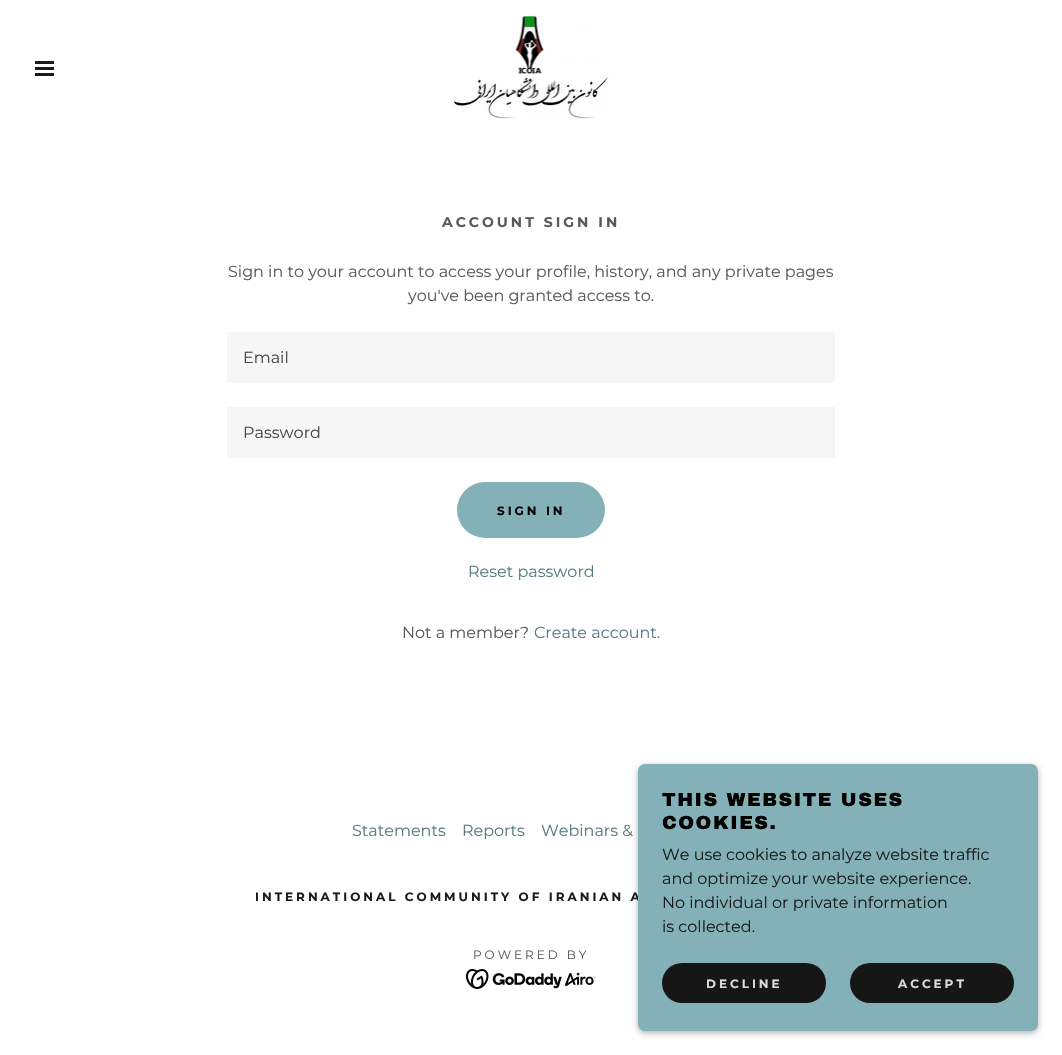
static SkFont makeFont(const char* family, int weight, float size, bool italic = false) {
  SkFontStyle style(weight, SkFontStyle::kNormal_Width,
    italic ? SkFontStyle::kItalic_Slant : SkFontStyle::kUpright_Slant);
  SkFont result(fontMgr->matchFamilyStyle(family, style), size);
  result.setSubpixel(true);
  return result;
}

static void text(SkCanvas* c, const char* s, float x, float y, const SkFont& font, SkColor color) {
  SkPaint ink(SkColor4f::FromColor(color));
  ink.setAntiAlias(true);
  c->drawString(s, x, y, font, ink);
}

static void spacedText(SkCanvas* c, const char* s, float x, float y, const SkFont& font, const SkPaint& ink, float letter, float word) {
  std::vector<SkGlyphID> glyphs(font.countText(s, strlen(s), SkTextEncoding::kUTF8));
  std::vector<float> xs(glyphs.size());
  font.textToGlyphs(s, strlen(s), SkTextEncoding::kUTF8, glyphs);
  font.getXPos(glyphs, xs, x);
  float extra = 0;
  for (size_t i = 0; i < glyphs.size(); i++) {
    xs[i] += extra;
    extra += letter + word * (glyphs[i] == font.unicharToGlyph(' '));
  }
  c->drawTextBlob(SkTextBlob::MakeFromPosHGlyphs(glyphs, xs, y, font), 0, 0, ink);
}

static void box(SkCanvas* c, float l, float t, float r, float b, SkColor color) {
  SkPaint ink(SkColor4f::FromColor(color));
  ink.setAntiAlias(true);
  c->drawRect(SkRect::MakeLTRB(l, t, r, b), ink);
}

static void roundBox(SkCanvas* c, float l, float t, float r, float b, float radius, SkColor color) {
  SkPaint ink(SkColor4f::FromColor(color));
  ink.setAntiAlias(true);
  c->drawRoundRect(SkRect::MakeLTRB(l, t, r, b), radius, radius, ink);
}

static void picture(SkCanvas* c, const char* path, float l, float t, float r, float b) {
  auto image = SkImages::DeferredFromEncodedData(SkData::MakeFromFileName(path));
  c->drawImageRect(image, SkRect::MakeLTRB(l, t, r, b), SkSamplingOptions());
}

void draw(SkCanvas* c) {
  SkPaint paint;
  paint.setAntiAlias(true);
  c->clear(0xffffffff);
  box(c, 35, 61, 54, 64, 0xff1b1b1b);
  box(c, 35, 67, 54, 70, 0xff1b1b1b);
  box(c, 35, 73, 54, 76, 0xff1b1b1b);
  picture(c, "img_01.png", 452, 16, 609, 120);
  SkFont face1 = makeFont("Montserrat", 700, 14);
  paint.setColor(0xff595959);
  spacedText(c, "ACCOUNT SIGN IN", 442, 227, face1, paint, 3, 0);
  SkFont face2 = makeFont("Montserrat", 400, 16);
  text(c, "Sign in to your account to access your profile, history, and any private pages", 228, 277, face2, 0xff595959);
  text(c, "you've been granted access to.", 408, 301, face2, 0xff595959);
  box(c, 227, 332, 835, 383, 0xfff6f6f6);
  text(c, "Email", 243, 363, face2, 0xff474747);
  box(c, 227, 407, 835, 458, 0xfff6f6f6);
  text(c, "Password", 243, 438, face2, 0xff474747);
  roundBox(c, 457, 482, 605, 538, 28, 0xff84b1b8);
  SkFont face3 = makeFont("Montserrat", 700, 12);
  paint.setColor(0xff000000);
  spacedText(c, "SIGN IN", 497, 515, face3, paint, 3, 0);
  text(c, "Reset password", 468, 577, face2, 0xff577c82);
  text(c, "Not a member?", 402, 638, face2, 0xff595959);
  text(c, "Create account.", 534, 638, face2, 0xff577c82);
  text(c, "Statements", 352, 836, face2, 0xff577c82);
  text(c, "Reports", 462, 836, face2, 0xff577c82);
  text(c, "Webinars &", 541, 836, face2, 0xff577c82);
  paint.setColor(0xff1b1b1b);
  spacedText(c, "INTERNATIONAL COMMUNITY OF IRANIAN A", 255, 901, face3, paint, 3, 0);
  SkFont face4 = makeFont("Montserrat", 400, 12);
  paint.setColor(0xff595959);
  spacedText(c, "POWERED BY", 473, 959, face4, paint, 3, 0);
  picture(c, "img_02.png", 466, 969, 596, 989);
  paint.setColor(0x4d000000);
  paint.setMaskFilter(SkMaskFilter::MakeBlur(kNormal_SkBlurStyle, 3));
  c->drawRoundRect(SkRect::MakeLTRB(638, 766, 1038, 1033), 7, 7, paint);
  paint.setMaskFilter(nullptr);
  roundBox(c, 638, 764, 1038, 1031, 7, 0xff84b1b8);
  SkFont face5 = makeFont("Archivo Black", 900, 19);
  paint.setColor(0xff000000);
  spacedText(c, "THIS WEBSITE USES", 662, 806, face5, paint, 1.5f, 0);
  spacedText(c, "COOKIES.", 662, 829, face5, paint, 1.5f, 0);
  text(c, "We use cookies to analyze website traffic", 662, 860, face2, 0xff1b1b1b);
  text(c, "and optimize your website experience.", 662, 884, face2, 0xff1b1b1b);
  text(c, "No individual or private information", 662, 908, face2, 0xff1b1b1b);
  text(c, "is collected.", 662, 932, face2, 0xff1b1b1b);
  roundBox(c, 662, 963, 826, 1003, 20, 0xff161616);
  paint.setColor(0xffdbdbdb);
  spacedText(c, "DECLINE", 706, 988, face3, paint, 3, 0);
  roundBox(c, 850, 963, 1014, 1003, 20, 0xff161616);
  spacedText(c, "ACCEPT", 898, 988, face3, paint, 3, 0);
}
